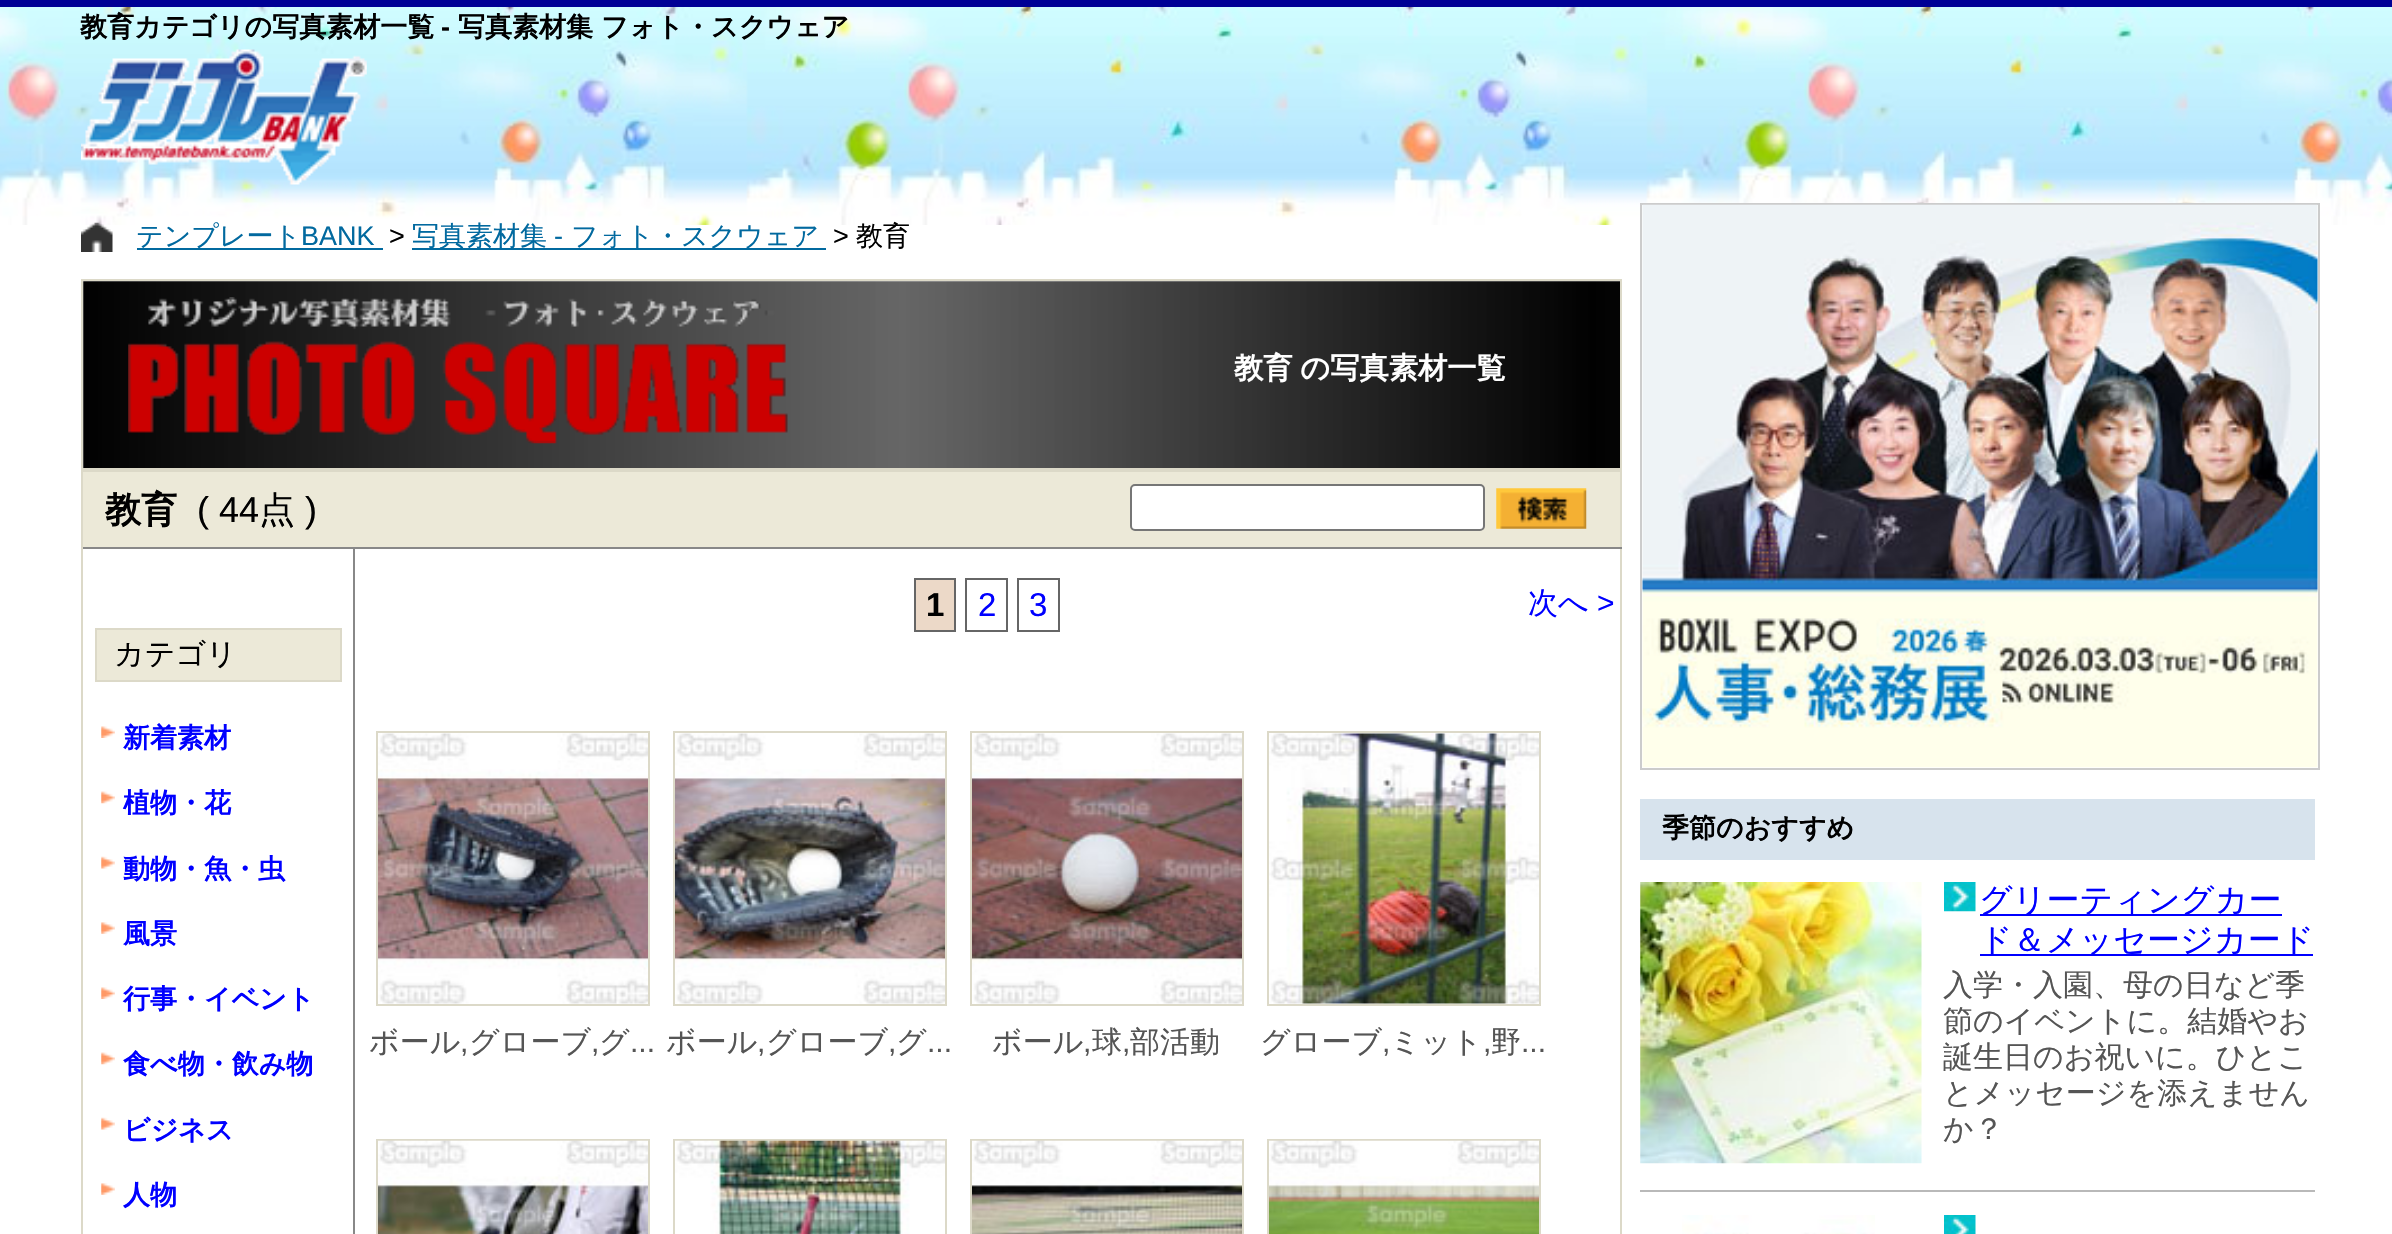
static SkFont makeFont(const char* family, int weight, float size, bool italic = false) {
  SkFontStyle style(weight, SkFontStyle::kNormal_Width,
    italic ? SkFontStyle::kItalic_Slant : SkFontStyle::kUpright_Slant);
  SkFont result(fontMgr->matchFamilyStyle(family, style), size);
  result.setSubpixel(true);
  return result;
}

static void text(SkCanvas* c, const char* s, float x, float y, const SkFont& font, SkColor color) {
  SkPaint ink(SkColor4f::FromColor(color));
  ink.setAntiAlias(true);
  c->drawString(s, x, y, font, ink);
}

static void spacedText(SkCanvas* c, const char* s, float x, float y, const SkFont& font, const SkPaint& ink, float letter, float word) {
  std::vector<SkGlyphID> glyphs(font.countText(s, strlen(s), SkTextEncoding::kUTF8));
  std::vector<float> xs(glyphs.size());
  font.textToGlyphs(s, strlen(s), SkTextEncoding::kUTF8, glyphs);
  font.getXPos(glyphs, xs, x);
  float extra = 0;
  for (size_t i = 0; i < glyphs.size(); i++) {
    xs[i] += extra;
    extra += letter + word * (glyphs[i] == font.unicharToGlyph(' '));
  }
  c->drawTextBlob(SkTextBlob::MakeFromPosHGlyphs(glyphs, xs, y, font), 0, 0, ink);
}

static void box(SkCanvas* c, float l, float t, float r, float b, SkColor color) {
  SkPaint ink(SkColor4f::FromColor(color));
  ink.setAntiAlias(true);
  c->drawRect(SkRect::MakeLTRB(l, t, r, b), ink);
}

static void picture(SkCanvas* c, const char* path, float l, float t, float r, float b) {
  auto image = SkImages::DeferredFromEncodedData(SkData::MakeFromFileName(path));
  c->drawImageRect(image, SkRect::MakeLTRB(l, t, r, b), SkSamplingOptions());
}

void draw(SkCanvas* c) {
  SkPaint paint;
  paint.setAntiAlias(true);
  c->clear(0xffffffff);
  picture(c, "img_01.png", 0, 7, 2392, 225);
  box(c, 0, 0, 2392, 7, 0xff000095);
  SkFont face1 = makeFont("WenQuanYi Zen Hei", 700, 27);
  text(c, "教育カテゴリの写真素材一覧", 80, 36, face1, 0xff000000);
  SkFont face2 = makeFont("Liberation Sans", 700, 27);
  text(c, "-", 441, 36, face2, 0xff000000);
  text(c, "写真素材集 フォト・スクウェア", 458, 36, face1, 0xff000000);
  picture(c, "img_02.png", 81, 49, 367, 185);
  picture(c, "img_03.png", 81, 222, 113, 252);
  box(c, 137, 248, 383, 250, 0xff01699f);
  SkFont face3 = makeFont("WenQuanYi Zen Hei", 500, 27);
  text(c, "テンプレート", 136, 245, face3, 0xff01699f);
  SkFont face4 = makeFont("Liberation Sans", 400, 27);
  text(c, "BANK", 301, 245, face4, 0xff01699f);
  text(c, ">", 389, 245, face4, 0xff000000);
  box(c, 412, 248, 826, 250, 0xff01699f);
  text(c, "写真素材集", 412, 245, face3, 0xff01699f);
  text(c, "-", 554, 245, face4, 0xff01699f);
  text(c, "フォト・スクウェア", 571, 245, face3, 0xff01699f);
  text(c, ">", 833, 245, face4, 0xff000000);
  text(c, "教育", 856, 245, face3, 0xff000000);
  paint.setStyle(SkPaint::kStroke_Style);
  paint.setStrokeWidth(2);
  paint.setColor(0xffdcd9c8);
  c->drawRect(SkRect::MakeLTRB(82, 280, 1621, 469), paint);
  picture(c, "img_04.png", 83, 281, 1620, 468);
  picture(c, "img_05.png", 128, 297, 788, 444);
  SkFont face5 = makeFont("WenQuanYi Zen Hei", 700, 29.25f);
  paint.setStyle(SkPaint::kFill_Style);
  paint.setColor(0xffffffff);
  spacedText(c, "教育 の写真素材一覧", 1234, 378, face5, paint, 0, -1);
  box(c, 83, 472, 1620, 547, 0xffece9d8);
  box(c, 81, 470, 1622, 472, 0xffdcd9c8);
  box(c, 1620, 470, 1622, 1234, 0xffdcd9c8);
  box(c, 81, 547, 1622, 549, 0xff888888);
  box(c, 81, 470, 83, 1234, 0xffdcd9c8);
  SkFont face6 = makeFont("WenQuanYi Zen Hei", 700, 36);
  text(c, "教育", 105, 522, face6, 0xff000000);
  SkFont face7 = makeFont("Liberation Sans", 400, 36);
  text(c, "( 44", 197, 522, face7, 0xff000000);
  SkFont face8 = makeFont("WenQuanYi Zen Hei", 500, 36);
  text(c, "点", 259, 522, face8, 0xff000000);
  text(c, ")", 305, 522, face7, 0xff000000);
  c->drawRoundRect(SkRect::MakeLTRB(1131, 485, 1484, 530), 4, 4, paint);
  paint.setStyle(SkPaint::kStroke_Style);
  paint.setColor(0xff767676);
  c->drawRoundRect(SkRect::MakeLTRB(1131, 485, 1484, 530), 4, 4, paint);
  picture(c, "img_06.png", 1496, 488, 1587, 529);
  box(c, 353, 549, 355, 1234, 0xff888888);
  paint.setStyle(SkPaint::kFill_Style);
  paint.setColor(0xffece9d8);
  c->drawRect(SkRect::MakeLTRB(96, 629, 341, 681), paint);
  paint.setStyle(SkPaint::kStroke_Style);
  paint.setColor(0xffdcd9c8);
  c->drawRect(SkRect::MakeLTRB(96, 629, 341, 681), paint);
  SkFont face9 = makeFont("WenQuanYi Zen Hei", 500, 30);
  text(c, "カテゴリ", 114, 664, face9, 0xff000000);
  picture(c, "img_07.png", 101, 726, 115, 738);
  text(c, "新着素材", 123, 747, face1, 0xff0000ff);
  picture(c, "img_08.png", 101, 791, 115, 804);
  text(c, "植物・花", 123, 812, face1, 0xff0000ff);
  picture(c, "img_09.png", 101, 856, 115, 869);
  text(c, "動物・魚・虫", 123, 878, face1, 0xff0000ff);
  picture(c, "img_10.png", 101, 922, 115, 934);
  text(c, "風景", 123, 943, face1, 0xff0000ff);
  picture(c, "img_07.png", 101, 987, 115, 999);
  text(c, "行事・イベント", 123, 1008, face1, 0xff0000ff);
  picture(c, "img_08.png", 101, 1052, 115, 1065);
  text(c, "食べ物・飲み物", 123, 1073, face1, 0xff0000ff);
  picture(c, "img_09.png", 101, 1117, 115, 1130);
  text(c, "ビジネス", 123, 1139, face1, 0xff0000ff);
  picture(c, "img_10.png", 101, 1183, 115, 1195);
  text(c, "人物", 123, 1204, face1, 0xff0000ff);
  paint.setStyle(SkPaint::kFill_Style);
  paint.setColor(0xffecd9c8);
  c->drawRect(SkRect::MakeLTRB(915, 579, 955, 631), paint);
  paint.setStyle(SkPaint::kStroke_Style);
  paint.setColor(0xff666666);
  c->drawRect(SkRect::MakeLTRB(915, 579, 955, 631), paint);
  SkFont face10 = makeFont("Liberation Sans", 700, 33);
  text(c, "1", 926, 616, face10, 0xff000000);
  c->drawRect(SkRect::MakeLTRB(966, 579, 1007, 631), paint);
  SkFont face11 = makeFont("Liberation Sans", 400, 33);
  text(c, "2", 978, 616, face11, 0xff0000ff);
  c->drawRect(SkRect::MakeLTRB(1018, 579, 1059, 631), paint);
  text(c, "3", 1029, 616, face11, 0xff0000ff);
  text(c, "次へ", 1528, 613, face9, 0xff0000ff);
  SkFont face12 = makeFont("Liberation Sans", 400, 30);
  text(c, ">", 1597, 613, face12, 0xff0000ff);
  paint.setColor(0xffdcd9c8);
  c->drawRect(SkRect::MakeLTRB(377, 732, 649, 1005), paint);
  picture(c, "img_11.png", 378, 733, 648, 1004);
  text(c, "ボール", 369, 1052, face9, 0xff555555);
  text(c, ",", 460, 1052, face12, 0xff555555);
  text(c, "グローブ", 469, 1052, face9, 0xff555555);
  text(c, ",", 591, 1052, face12, 0xff555555);
  text(c, "グ", 599, 1052, face9, 0xff555555);
  text(c, "...", 630, 1052, face12, 0xff555555);
  c->drawRect(SkRect::MakeLTRB(674, 732, 946, 1005), paint);
  picture(c, "img_12.png", 675, 733, 945, 1004);
  text(c, "ボール", 666, 1052, face9, 0xff555555);
  text(c, ",", 757, 1052, face12, 0xff555555);
  text(c, "グローブ", 766, 1052, face9, 0xff555555);
  text(c, ",", 888, 1052, face12, 0xff555555);
  text(c, "グ", 896, 1052, face9, 0xff555555);
  text(c, "...", 927, 1052, face12, 0xff555555);
  c->drawRect(SkRect::MakeLTRB(971, 732, 1243, 1005), paint);
  picture(c, "img_13.png", 972, 733, 1242, 1004);
  text(c, "ボール", 992, 1052, face9, 0xff555555);
  text(c, ",", 1083, 1052, face12, 0xff555555);
  text(c, "球", 1092, 1052, face9, 0xff555555);
  text(c, ",", 1122, 1052, face12, 0xff555555);
  text(c, "部活動", 1130, 1052, face9, 0xff555555);
  c->drawRect(SkRect::MakeLTRB(1268, 732, 1540, 1005), paint);
  picture(c, "img_14.png", 1269, 733, 1539, 1004);
  text(c, "グローブ", 1260, 1052, face9, 0xff555555);
  text(c, ",", 1382, 1052, face12, 0xff555555);
  text(c, "ミット", 1390, 1052, face9, 0xff555555);
  text(c, ",", 1483, 1052, face12, 0xff555555);
  text(c, "野", 1491, 1052, face9, 0xff555555);
  text(c, "...", 1521, 1052, face12, 0xff555555);
  c->drawRect(SkRect::MakeLTRB(377, 1140, 649, 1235), paint);
  picture(c, "img_15.png", 378, 1140, 648, 1234);
  c->drawRect(SkRect::MakeLTRB(674, 1140, 946, 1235), paint);
  picture(c, "img_16.png", 675, 1140, 945, 1234);
  c->drawRect(SkRect::MakeLTRB(971, 1140, 1243, 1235), paint);
  picture(c, "img_17.png", 972, 1140, 1242, 1234);
  c->drawRect(SkRect::MakeLTRB(1268, 1140, 1540, 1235), paint);
  picture(c, "img_18.png", 1269, 1140, 1539, 1234);
  paint.setColor(0xffcccccc);
  c->drawRect(SkRect::MakeLTRB(1641, 204, 2319, 769), paint);
  picture(c, "img_19.png", 1642, 204, 2318, 768);
  box(c, 1640, 799, 2315, 860, 0xffd7e3ed);
  text(c, "季節のおすすめ", 1662, 837, face1, 0xff000000);
  picture(c, "img_20.png", 1640, 882, 1922, 1164);
  picture(c, "img_21.png", 1944, 882, 1976, 912);
  box(c, 1980, 914, 2282, 916, 0xff0000ff);
  SkFont face13 = makeFont("WenQuanYi Zen Hei", 500, 33);
  text(c, "グリーティングカー", 1979, 911, face13, 0xff0000ff);
  box(c, 1980, 954, 2313, 956, 0xff0000ff);
  text(c, "ド＆メッセージカード", 1979, 951, face13, 0xff0000ff);
  text(c, "入学・入園、母の日など季", 1943, 995, face9, 0xff555555);
  text(c, "節のイベントに。結婚やお", 1943, 1031, face9, 0xff555555);
  text(c, "誕生日のお祝いに。ひとこ", 1943, 1067, face9, 0xff555555);
  text(c, "とメッセージを添えません", 1943, 1103, face9, 0xff555555);
  text(c, "か？", 1943, 1139, face9, 0xff555555);
  box(c, 1640, 1190, 2315, 1192, 0xffb9b9b9);
  picture(c, "img_22.png", 1682, 1215, 1875, 1234);
  picture(c, "img_23.png", 1944, 1215, 1976, 1234);
}
